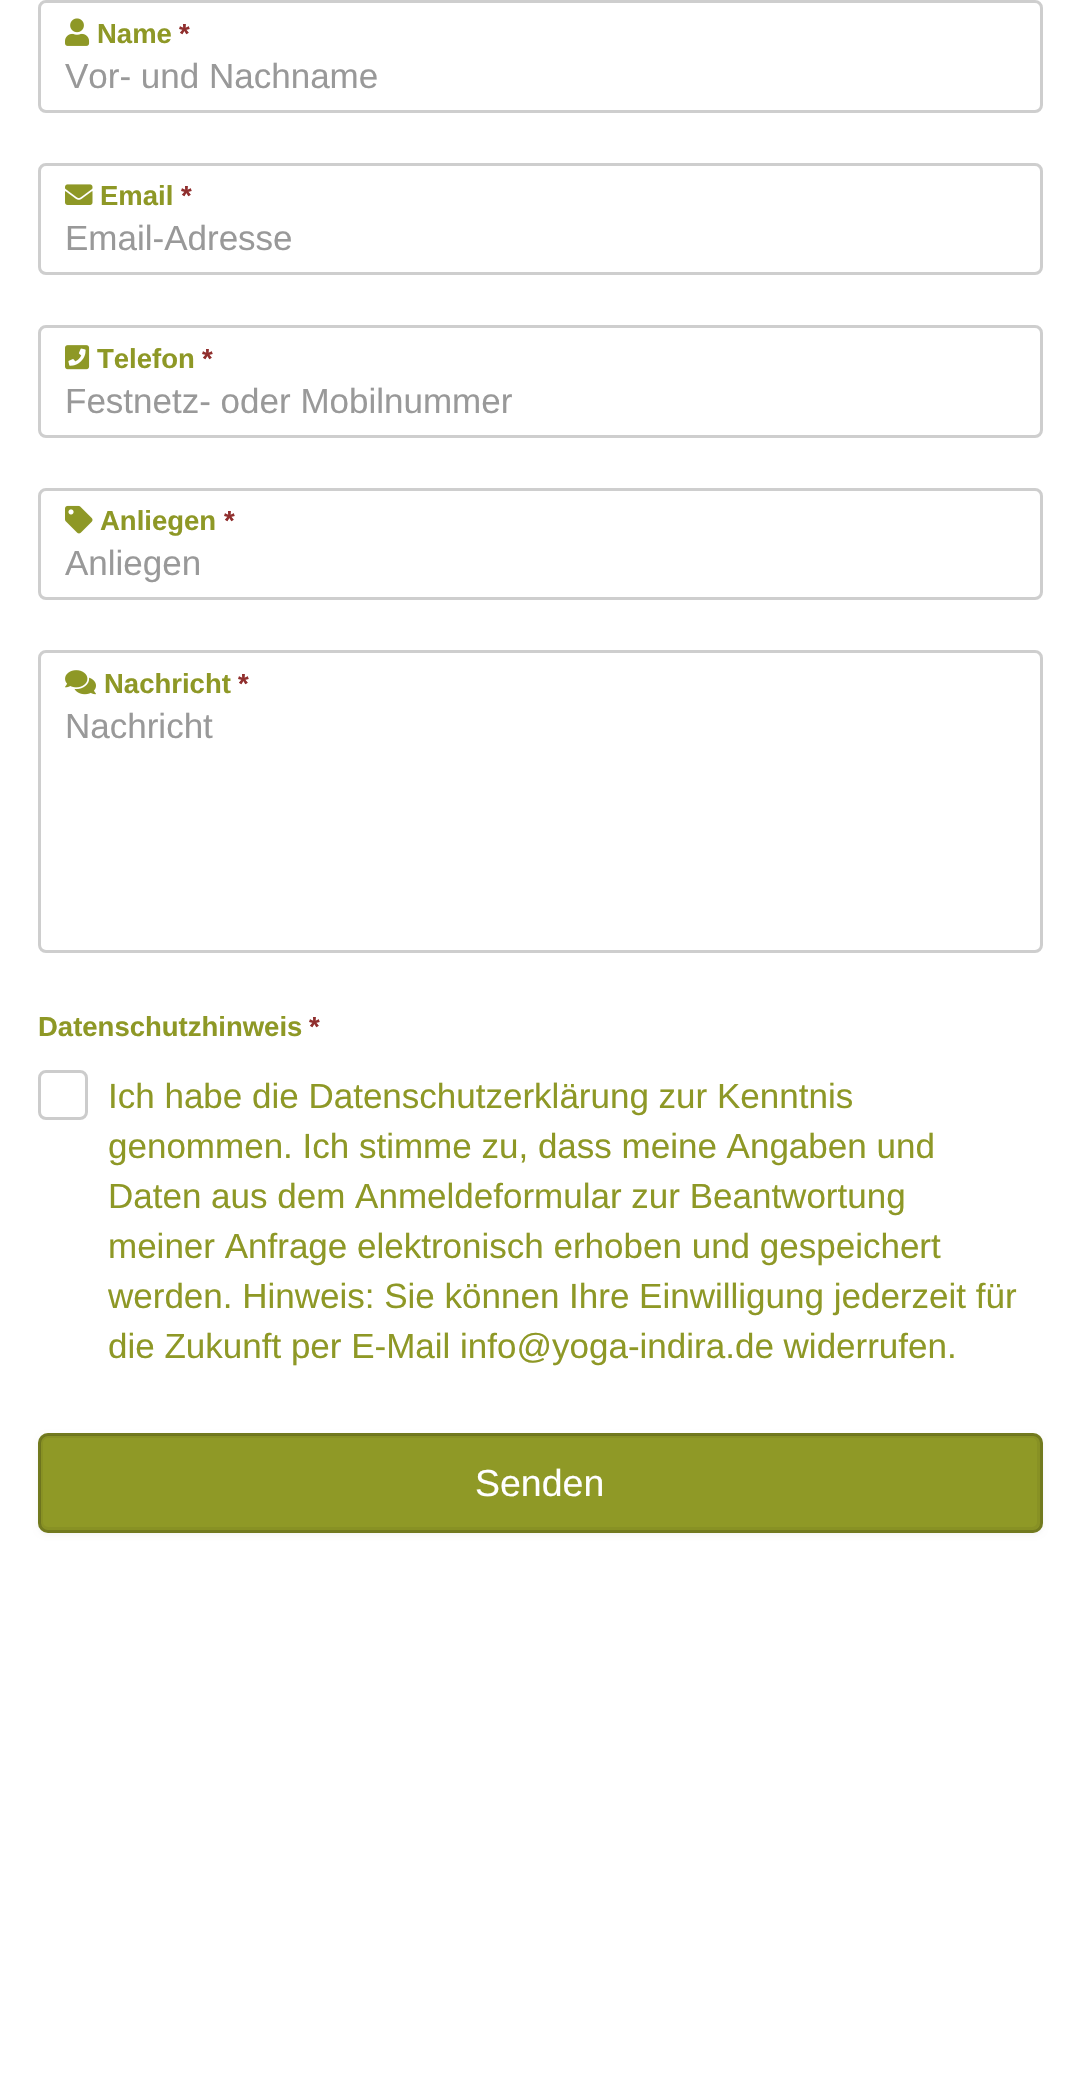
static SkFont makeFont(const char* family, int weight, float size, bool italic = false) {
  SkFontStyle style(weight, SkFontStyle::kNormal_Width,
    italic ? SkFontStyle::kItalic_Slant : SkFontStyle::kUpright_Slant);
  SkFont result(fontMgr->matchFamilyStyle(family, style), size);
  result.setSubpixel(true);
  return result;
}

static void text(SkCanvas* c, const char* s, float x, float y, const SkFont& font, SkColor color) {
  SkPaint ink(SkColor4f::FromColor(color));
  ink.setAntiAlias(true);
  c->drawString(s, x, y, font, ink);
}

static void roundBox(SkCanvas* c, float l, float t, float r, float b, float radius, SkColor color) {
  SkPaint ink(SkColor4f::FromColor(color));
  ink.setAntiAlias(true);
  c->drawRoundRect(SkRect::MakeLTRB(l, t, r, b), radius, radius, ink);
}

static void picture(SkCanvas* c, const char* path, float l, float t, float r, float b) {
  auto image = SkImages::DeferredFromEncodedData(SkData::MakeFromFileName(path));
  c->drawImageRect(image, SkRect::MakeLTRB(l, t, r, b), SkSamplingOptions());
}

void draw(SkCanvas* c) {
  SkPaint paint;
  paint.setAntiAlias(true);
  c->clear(0xffffffff);
  paint.setStyle(SkPaint::kStroke_Style);
  paint.setStrokeWidth(3);
  paint.setColor(0xffcecece);
  c->drawRoundRect(SkRect::MakeLTRB(39.5f, 1.5f, 1041.5f, 111.5f), 6.5f, 6.5f, paint);
  picture(c, "img_01.png", 65, 18, 90, 46);
  SkFont face1 = makeFont("Liberation Sans", 700, 27.5f);
  text(c, "Name", 97, 43, face1, 0xff8e9826);
  text(c, "*", 179, 43, face1, 0xff902f2e);
  SkFont face2 = makeFont("Liberation Sans", 400, 35);
  text(c, "Vor- und Nachname", 65, 88, face2, 0xff999999);
  c->drawRoundRect(SkRect::MakeLTRB(39.5f, 164.5f, 1041.5f, 273.5f), 6.5f, 6.5f, paint);
  picture(c, "img_02.png", 65, 184, 93, 205);
  text(c, "Email", 100, 205, face1, 0xff8e9826);
  text(c, "*", 181, 205, face1, 0xff902f2e);
  text(c, "Email-Adresse", 65, 250, face2, 0xff999999);
  c->drawRoundRect(SkRect::MakeLTRB(39.5f, 326.5f, 1041.5f, 436.5f), 6.5f, 6.5f, paint);
  picture(c, "img_03.png", 65, 345, 90, 370);
  text(c, "Telefon", 97, 368, face1, 0xff8e9826);
  text(c, "*", 202, 368, face1, 0xff902f2e);
  text(c, "Festnetz- oder Mobilnummer", 65, 413, face2, 0xff999999);
  c->drawRoundRect(SkRect::MakeLTRB(39.5f, 489.5f, 1041.5f, 598.5f), 6.5f, 6.5f, paint);
  picture(c, "img_04.png", 65, 505, 93, 534);
  text(c, "Anliegen", 100, 530, face1, 0xff8e9826);
  text(c, "*", 224, 530, face1, 0xff902f2e);
  text(c, "Anliegen", 65, 575, face2, 0xff999999);
  c->drawRoundRect(SkRect::MakeLTRB(39.5f, 651.5f, 1041.5f, 951.5f), 6.5f, 6.5f, paint);
  picture(c, "img_05.png", 65, 670, 96, 695);
  text(c, "Nachricht", 104, 693, face1, 0xff8e9826);
  text(c, "*", 238, 693, face1, 0xff902f2e);
  text(c, "Nachricht", 65, 738, face2, 0xff999999);
  text(c, "Datenschutzhinweis", 38, 1036, face1, 0xff8e9826);
  text(c, "*", 309, 1036, face1, 0xff902f2e);
  paint.setColor(0xffcccccc);
  c->drawRoundRect(SkRect::MakeLTRB(39.5f, 1071.5f, 86.5f, 1118.5f), 6.5f, 6.5f, paint);
  text(c, "Ich habe die Datenschutzerklärung zur Kenntnis", 108, 1108, face2, 0xff8e9826);
  text(c, "genommen. Ich stimme zu, dass meine Angaben und", 108, 1158, face2, 0xff8e9826);
  text(c, "Daten aus dem Anmeldeformular zur Beantwortung", 108, 1208, face2, 0xff8e9826);
  text(c, "meiner Anfrage elektronisch erhoben und gespeichert", 108, 1258, face2, 0xff8e9826);
  text(c, "werden. Hinweis: Sie können Ihre Einwilligung jederzeit für", 108, 1308, face2, 0xff8e9826);
  text(c, "die Zukunft per E-Mail info@yoga-indira.de widerrufen.", 108, 1358, face2, 0xff8e9826);
  paint.setStyle(SkPaint::kFill_Style);
  paint.setColor(0x0a000000);
  paint.setMaskFilter(SkMaskFilter::MakeBlur(kNormal_SkBlurStyle, 2.5f));
  c->drawRoundRect(SkRect::MakeLTRB(38, 1435, 1043, 1535), 10, 10, paint);
  paint.setMaskFilter(nullptr);
  roundBox(c, 38, 1433, 1043, 1533, 10, 0xff8f9926);
  paint.setStyle(SkPaint::kStroke_Style);
  paint.setColor(0xff889124);
  c->drawRoundRect(SkRect::MakeLTRB(41.5f, 1436.5f, 1038.5f, 1528.5f), 6.5f, 6.5f, paint);
  paint.setColor(0x33000000);
  c->drawRoundRect(SkRect::MakeLTRB(39.5f, 1434.5f, 1041.5f, 1531.5f), 8.5f, 8.5f, paint);
  SkFont face3 = makeFont("Liberation Sans", 400, 37.5f);
  text(c, "Senden", 475, 1496, face3, 0xffffffff);
}
